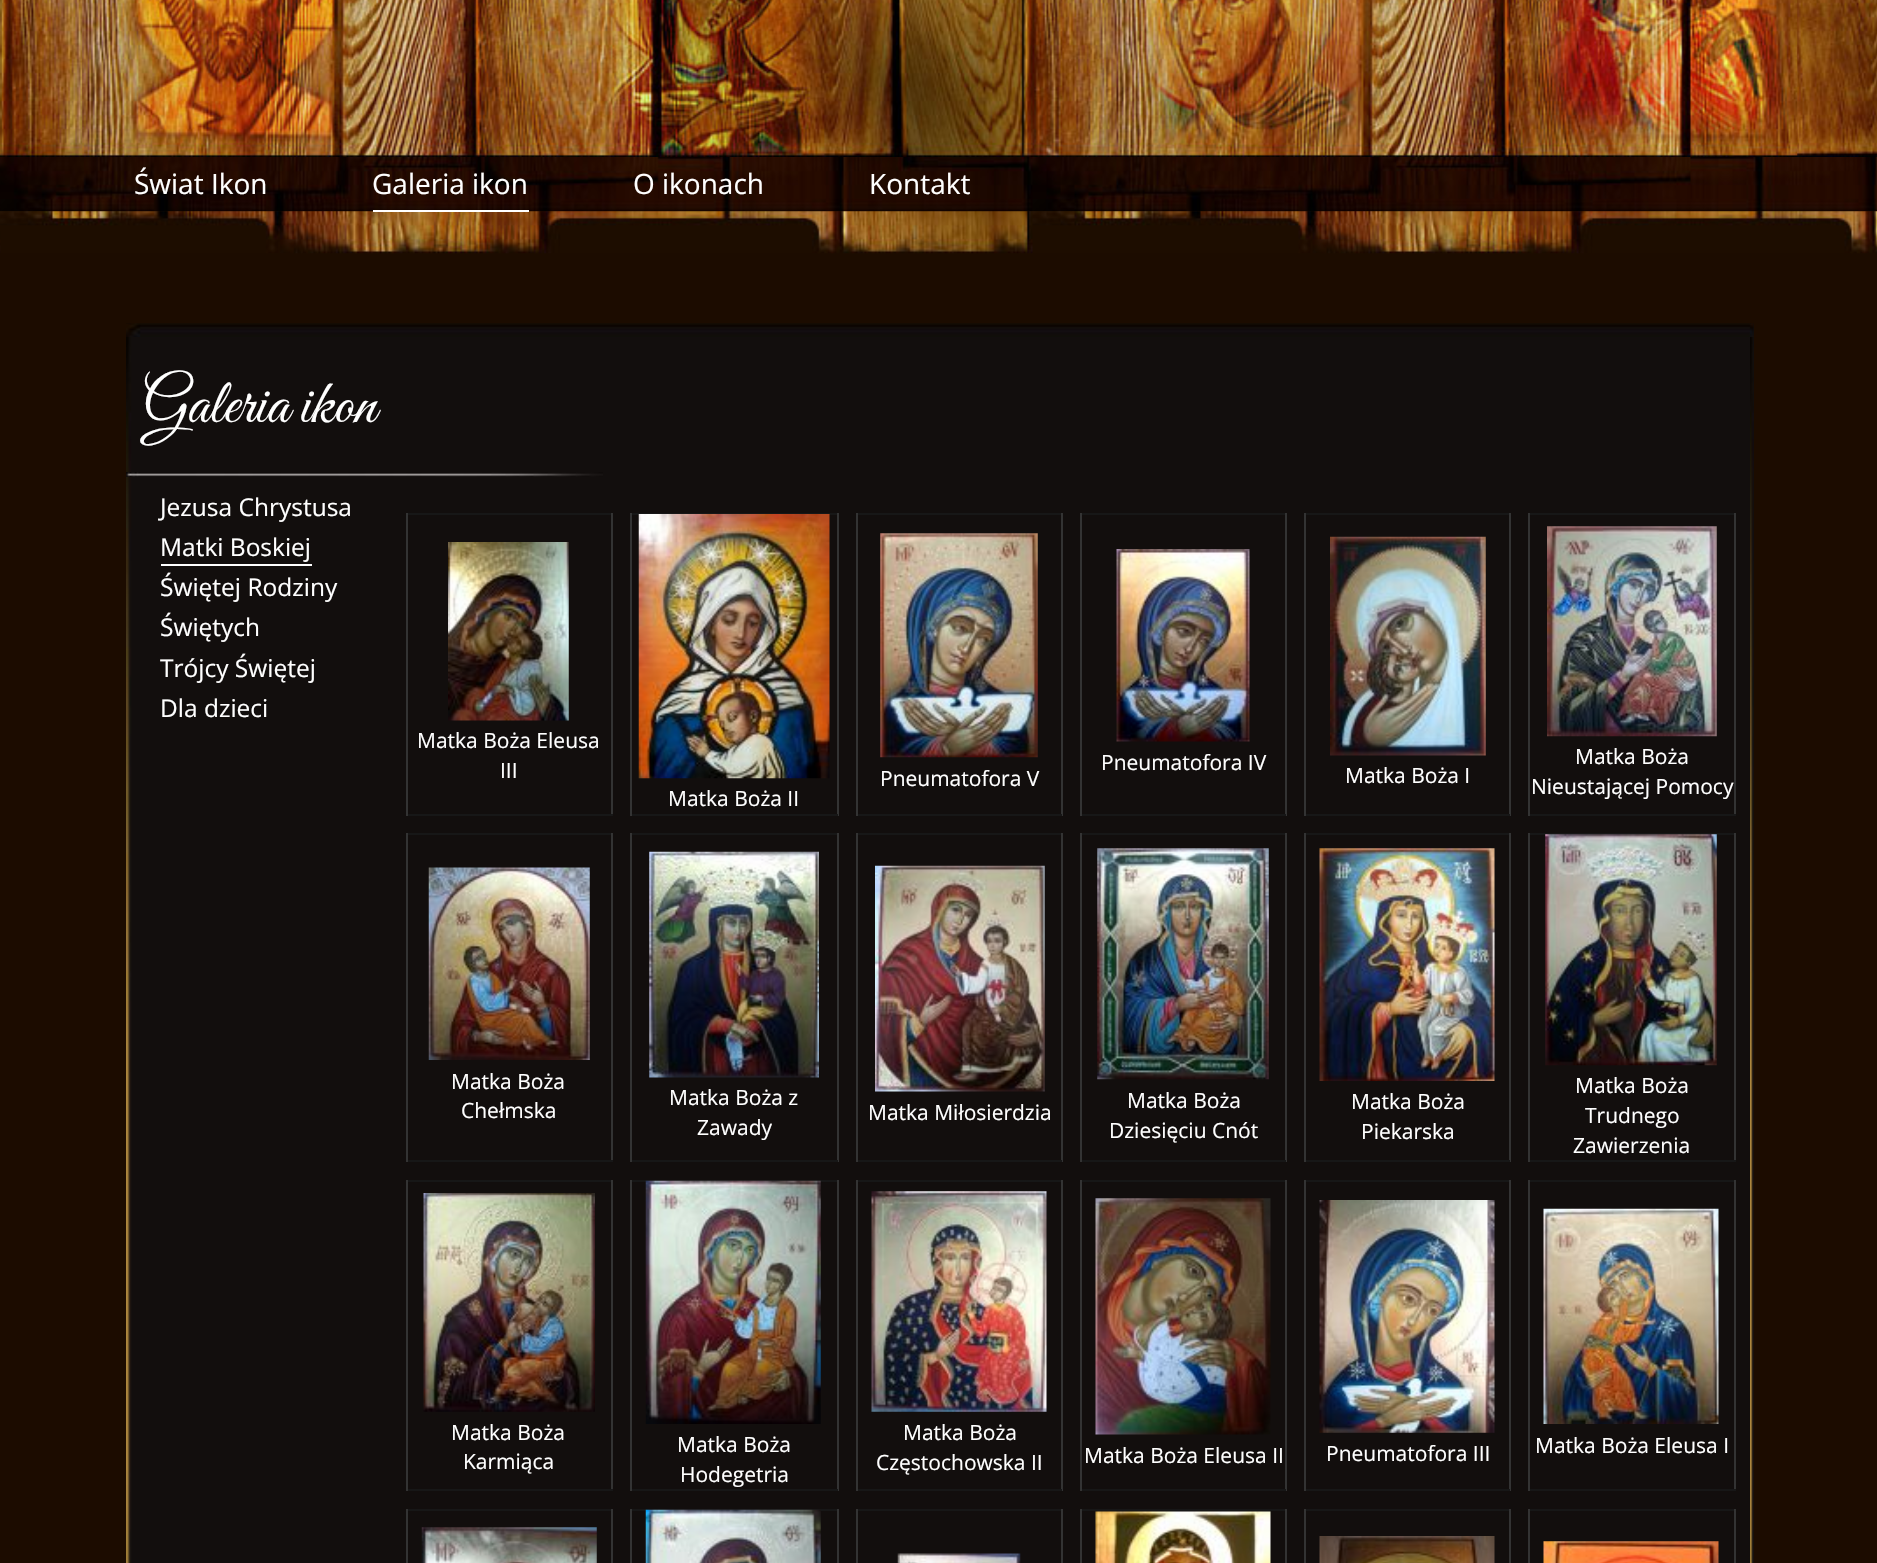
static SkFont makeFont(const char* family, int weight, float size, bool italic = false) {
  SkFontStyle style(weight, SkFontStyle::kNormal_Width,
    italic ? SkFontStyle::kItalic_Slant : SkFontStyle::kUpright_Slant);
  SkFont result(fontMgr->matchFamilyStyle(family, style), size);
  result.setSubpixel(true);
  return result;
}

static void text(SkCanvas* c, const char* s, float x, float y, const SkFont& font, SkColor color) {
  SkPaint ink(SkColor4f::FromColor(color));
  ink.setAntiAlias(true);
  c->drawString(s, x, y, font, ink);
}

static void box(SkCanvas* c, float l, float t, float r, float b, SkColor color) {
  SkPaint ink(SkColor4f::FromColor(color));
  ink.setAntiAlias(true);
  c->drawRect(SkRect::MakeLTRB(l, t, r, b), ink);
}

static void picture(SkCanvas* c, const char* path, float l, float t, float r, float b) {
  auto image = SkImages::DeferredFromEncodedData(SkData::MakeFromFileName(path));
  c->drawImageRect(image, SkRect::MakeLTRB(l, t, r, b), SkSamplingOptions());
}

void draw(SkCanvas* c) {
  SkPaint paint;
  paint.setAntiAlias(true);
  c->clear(0xff1c0c00);
  picture(c, "img_01.png", 0, 0, 1877, 157);
  picture(c, "img_02.png", 82, 0, 1798, 157);
  picture(c, "img_03.png", 0, 157, 1877, 212);
  SkFont face1 = makeFont("Open Sans", 400, 28);
  text(c, "Świat Ikon", 134, 194, face1, 0xffffffff);
  picture(c, "img_04.png", 0, 211, 1877, 254);
  box(c, 373, 210, 529, 212, 0xffffffff);
  text(c, "Galeria ikon", 372, 194, face1, 0xffffffff);
  text(c, "O ikonach", 633, 194, face1, 0xffffffff);
  text(c, "Kontakt", 869, 194, face1, 0xffffffff);
  box(c, 131, 324, 1754, 1563, 0xff120e0d);
  picture(c, "img_05.png", 126, 323, 1754, 1563);
  picture(c, "img_06.png", 126, 323, 1754, 337);
  picture(c, "img_07.png", 126, 472, 603, 477);
  SkFont face2 = makeFont("Great Vibes", 400, 63);
  text(c, "Galeria ikon", 143, 422, face2, 0xffffffff);
  SkFont face3 = makeFont("Open Sans", 400, 24.5f);
  text(c, "Jezusa Chrystusa", 160, 516, face3, 0xffffffff);
  text(c, "Matki Boskiej", 160, 556, face3, 0xffffffff);
  box(c, 161, 564, 312, 566, 0xffffffff);
  text(c, "Świętej Rodziny", 160, 596, face3, 0xffffffff);
  text(c, "Świętych", 160, 636, face3, 0xffffffff);
  text(c, "Trójcy Świętej", 160, 677, face3, 0xffffffff);
  text(c, "Dla dzieci", 160, 717, face3, 0xffffffff);
  box(c, 406, 513, 613, 515, 0xff171717);
  box(c, 611, 513, 613, 816, 0xff333333);
  box(c, 406, 814, 613, 816, 0xff171717);
  box(c, 406, 513, 408, 816, 0xff333333);
  picture(c, "img_08.png", 448, 542, 569, 721);
  SkFont face4 = makeFont("Open Sans", 400, 21);
  text(c, "Matka Boża Eleusa", 417, 748, face4, 0xffffffff);
  text(c, "III", 500, 778, face4, 0xffffffff);
  box(c, 1080, 513, 1286, 515, 0xff171717);
  box(c, 1285, 513, 1287, 816, 0xff333333);
  box(c, 1080, 814, 1286, 816, 0xff171717);
  box(c, 1080, 513, 1082, 816, 0xff333333);
  picture(c, "img_09.png", 1116, 549, 1250, 742);
  text(c, "Pneumatofora IV", 1101, 770, face4, 0xffffffff);
  box(c, 1528, 513, 1736, 515, 0xff171717);
  box(c, 1734, 513, 1736, 816, 0xff333333);
  box(c, 1528, 814, 1736, 816, 0xff171717);
  box(c, 1528, 513, 1530, 816, 0xff333333);
  picture(c, "img_10.png", 1547, 526, 1717, 737);
  text(c, "Matka Boża", 1575, 764, face4, 0xffffffff);
  text(c, "Nieustającej Pomocy", 1531, 794, face4, 0xffffffff);
  box(c, 856, 513, 1062, 515, 0xff171717);
  box(c, 1061, 513, 1063, 816, 0xff333333);
  box(c, 856, 814, 1062, 816, 0xff171717);
  box(c, 856, 513, 858, 816, 0xff333333);
  picture(c, "img_11.png", 880, 533, 1038, 758);
  text(c, "Pneumatofora V", 880, 786, face4, 0xffffffff);
  box(c, 1304, 513, 1510, 515, 0xff171717);
  box(c, 1509, 513, 1511, 816, 0xff333333);
  box(c, 1304, 814, 1510, 816, 0xff171717);
  box(c, 1304, 513, 1306, 816, 0xff333333);
  picture(c, "img_12.png", 1330, 536, 1486, 756);
  text(c, "Matka Boża I", 1345, 783, face4, 0xffffffff);
  box(c, 630, 513, 838, 515, 0xff171717);
  box(c, 837, 513, 839, 816, 0xff333333);
  box(c, 630, 814, 838, 816, 0xff171717);
  box(c, 630, 513, 632, 816, 0xff333333);
  picture(c, "img_13.png", 638, 514, 830, 779);
  text(c, "Matka Boża II", 668, 806, face4, 0xffffffff);
  box(c, 406, 833, 613, 835, 0xff171717);
  box(c, 611, 833, 613, 1162, 0xff333333);
  box(c, 406, 1160, 613, 1162, 0xff171717);
  box(c, 406, 833, 408, 1162, 0xff333333);
  picture(c, "img_14.png", 428, 867, 590, 1060);
  text(c, "Matka Boża", 451, 1089, face4, 0xffffffff);
  text(c, "Chełmska", 461, 1118, face4, 0xffffffff);
  box(c, 630, 833, 838, 835, 0xff171717);
  box(c, 837, 833, 839, 1162, 0xff333333);
  box(c, 630, 1160, 838, 1162, 0xff171717);
  box(c, 630, 833, 632, 1162, 0xff333333);
  picture(c, "img_15.png", 649, 851, 819, 1078);
  text(c, "Matka Boża z", 669, 1105, face4, 0xffffffff);
  text(c, "Zawady", 697, 1135, face4, 0xffffffff);
  box(c, 856, 833, 1062, 835, 0xff171717);
  box(c, 1061, 833, 1063, 1162, 0xff333333);
  box(c, 856, 1160, 1062, 1162, 0xff171717);
  box(c, 856, 833, 858, 1162, 0xff333333);
  picture(c, "img_16.png", 875, 865, 1045, 1092);
  text(c, "Matka Miłosierdzia", 868, 1120, face4, 0xffffffff);
  box(c, 1080, 833, 1286, 835, 0xff171717);
  box(c, 1285, 833, 1287, 1162, 0xff333333);
  box(c, 1080, 1160, 1286, 1162, 0xff171717);
  box(c, 1080, 833, 1082, 1162, 0xff333333);
  picture(c, "img_17.png", 1097, 848, 1269, 1080);
  text(c, "Matka Boża", 1127, 1108, face4, 0xffffffff);
  text(c, "Dziesięciu Cnót", 1109, 1138, face4, 0xffffffff);
  box(c, 1304, 833, 1510, 835, 0xff171717);
  box(c, 1509, 833, 1511, 1162, 0xff333333);
  box(c, 1304, 1160, 1510, 1162, 0xff171717);
  box(c, 1304, 833, 1306, 1162, 0xff333333);
  picture(c, "img_18.png", 1319, 848, 1495, 1081);
  text(c, "Matka Boża", 1351, 1109, face4, 0xffffffff);
  text(c, "Piekarska", 1361, 1139, face4, 0xffffffff);
  box(c, 1528, 833, 1736, 835, 0xff171717);
  box(c, 1734, 833, 1736, 1162, 0xff333333);
  box(c, 1528, 1160, 1736, 1162, 0xff171717);
  box(c, 1528, 833, 1530, 1162, 0xff333333);
  picture(c, "img_19.png", 1545, 834, 1717, 1066);
  text(c, "Matka Boża", 1575, 1093, face4, 0xffffffff);
  text(c, "Trudnego", 1585, 1123, face4, 0xffffffff);
  text(c, "Zawierzenia", 1573, 1153, face4, 0xffffffff);
  box(c, 406, 1180, 613, 1182, 0xff171717);
  box(c, 611, 1180, 613, 1491, 0xff333333);
  box(c, 406, 1489, 613, 1491, 0xff171717);
  box(c, 406, 1180, 408, 1491, 0xff333333);
  picture(c, "img_20.png", 423, 1193, 595, 1412);
  text(c, "Matka Boża", 451, 1440, face4, 0xffffffff);
  text(c, "Karmiąca", 463, 1469, face4, 0xffffffff);
  box(c, 630, 1180, 838, 1182, 0xff171717);
  box(c, 837, 1180, 839, 1491, 0xff333333);
  box(c, 630, 1489, 838, 1491, 0xff171717);
  box(c, 630, 1180, 632, 1491, 0xff333333);
  picture(c, "img_21.png", 645, 1180, 821, 1424);
  text(c, "Matka Boża", 677, 1452, face4, 0xffffffff);
  text(c, "Hodegetria", 680, 1482, face4, 0xffffffff);
  box(c, 856, 1180, 1062, 1182, 0xff171717);
  box(c, 1061, 1180, 1063, 1491, 0xff333333);
  box(c, 856, 1489, 1062, 1491, 0xff171717);
  box(c, 856, 1180, 858, 1491, 0xff333333);
  picture(c, "img_22.png", 871, 1191, 1047, 1412);
  text(c, "Matka Boża", 903, 1440, face4, 0xffffffff);
  text(c, "Częstochowska II", 876, 1470, face4, 0xffffffff);
  box(c, 1080, 1180, 1286, 1182, 0xff171717);
  box(c, 1285, 1180, 1287, 1491, 0xff333333);
  box(c, 1080, 1489, 1286, 1491, 0xff171717);
  box(c, 1080, 1180, 1082, 1491, 0xff333333);
  picture(c, "img_23.png", 1095, 1198, 1271, 1435);
  text(c, "Matka Boża Eleusa II", 1084, 1463, face4, 0xffffffff);
  box(c, 1304, 1180, 1510, 1182, 0xff171717);
  box(c, 1509, 1180, 1511, 1491, 0xff333333);
  box(c, 1304, 1489, 1510, 1491, 0xff171717);
  box(c, 1304, 1180, 1306, 1491, 0xff333333);
  picture(c, "img_24.png", 1319, 1200, 1495, 1433);
  text(c, "Pneumatofora III", 1326, 1461, face4, 0xffffffff);
  box(c, 1528, 1180, 1736, 1182, 0xff171717);
  box(c, 1734, 1180, 1736, 1491, 0xff333333);
  box(c, 1528, 1489, 1736, 1491, 0xff171717);
  box(c, 1528, 1180, 1530, 1491, 0xff333333);
  picture(c, "img_25.png", 1543, 1208, 1719, 1424);
  text(c, "Matka Boża Eleusa I", 1535, 1453, face4, 0xffffffff);
  box(c, 406, 1509, 613, 1511, 0xff171717);
  box(c, 611, 1509, 613, 1563, 0xff333333);
  box(c, 406, 1509, 408, 1563, 0xff333333);
  picture(c, "img_26.png", 421, 1527, 597, 1563);
  box(c, 630, 1509, 838, 1511, 0xff171717);
  box(c, 837, 1509, 839, 1563, 0xff333333);
  box(c, 630, 1509, 632, 1563, 0xff333333);
  picture(c, "img_27.png", 645, 1509, 821, 1563);
  box(c, 856, 1509, 1062, 1511, 0xff171717);
  box(c, 1061, 1509, 1063, 1563, 0xff333333);
  box(c, 856, 1509, 858, 1563, 0xff333333);
  picture(c, "img_28.png", 897, 1553, 1021, 1563);
  box(c, 1080, 1509, 1286, 1511, 0xff171717);
  box(c, 1285, 1509, 1287, 1563, 0xff333333);
  box(c, 1080, 1509, 1082, 1563, 0xff333333);
  picture(c, "img_29.png", 1095, 1511, 1271, 1563);
  box(c, 1304, 1509, 1510, 1511, 0xff171717);
  box(c, 1509, 1509, 1511, 1563, 0xff333333);
  box(c, 1304, 1509, 1306, 1563, 0xff333333);
  picture(c, "img_30.png", 1319, 1536, 1495, 1563);
  box(c, 1528, 1509, 1736, 1511, 0xff171717);
  box(c, 1734, 1509, 1736, 1563, 0xff333333);
  box(c, 1528, 1509, 1530, 1563, 0xff333333);
  picture(c, "img_31.png", 1543, 1541, 1719, 1563);
}
